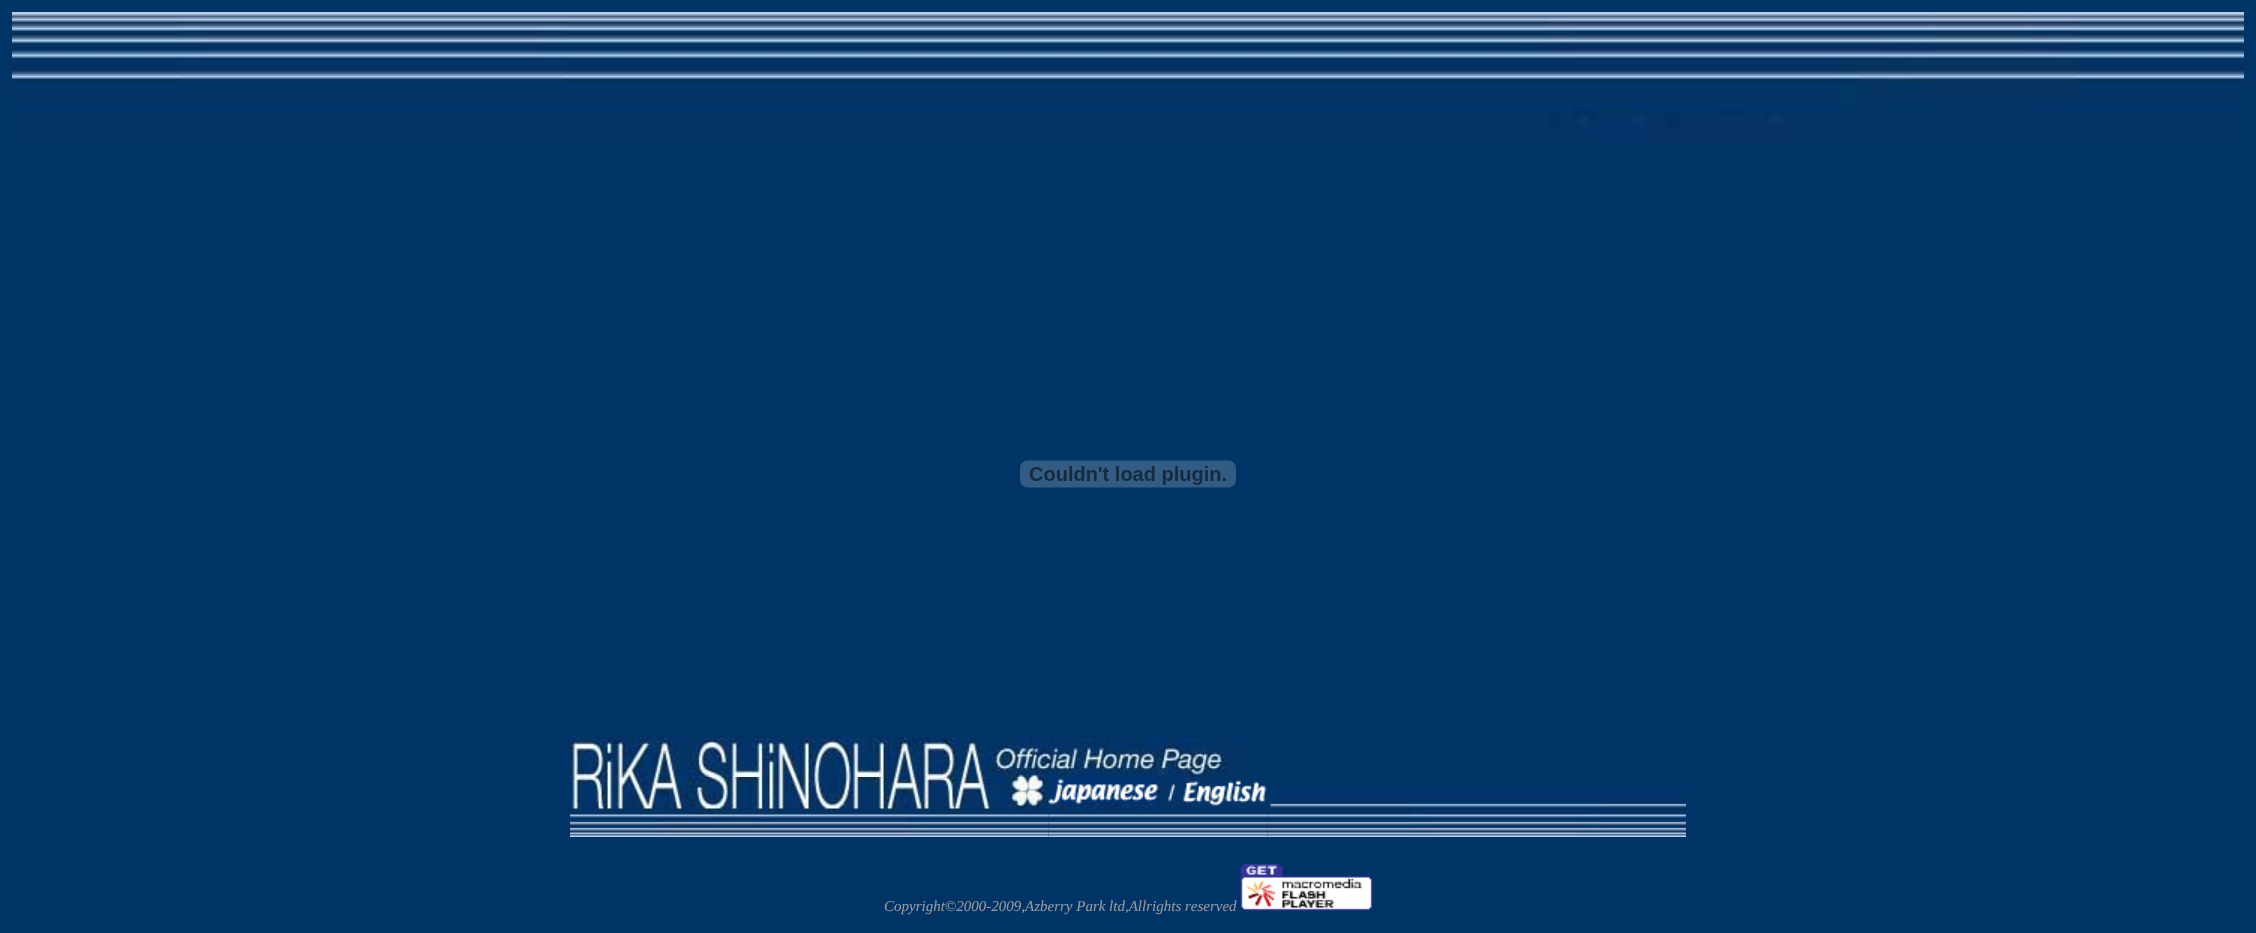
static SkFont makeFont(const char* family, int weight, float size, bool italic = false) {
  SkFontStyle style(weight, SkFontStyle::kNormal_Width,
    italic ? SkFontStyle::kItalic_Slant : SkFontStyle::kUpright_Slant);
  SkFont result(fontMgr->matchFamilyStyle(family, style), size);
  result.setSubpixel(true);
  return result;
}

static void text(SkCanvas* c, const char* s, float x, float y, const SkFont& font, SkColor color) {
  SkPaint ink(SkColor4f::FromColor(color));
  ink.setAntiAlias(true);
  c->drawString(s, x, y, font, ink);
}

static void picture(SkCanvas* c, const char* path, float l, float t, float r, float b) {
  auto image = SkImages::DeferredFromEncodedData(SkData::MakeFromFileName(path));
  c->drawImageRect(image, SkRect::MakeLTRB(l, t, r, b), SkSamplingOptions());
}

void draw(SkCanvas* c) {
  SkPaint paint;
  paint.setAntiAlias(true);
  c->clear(0xff003366);
  picture(c, "img_01.png", 12, 12, 2244, 143);
  picture(c, "img_02.png", 1020, 460, 1236, 488);
  picture(c, "img_03.png", 570, 738, 1242, 777);
  picture(c, "img_04.png", 570, 777, 1049, 837);
  picture(c, "img_05.png", 1048, 777, 1164, 807);
  picture(c, "img_06.png", 1164, 777, 1267, 809);
  picture(c, "img_07.png", 1267, 789, 1686, 837);
  picture(c, "img_08.png", 1048, 807, 1164, 837);
  picture(c, "img_09.png", 1164, 809, 1268, 837);
  SkFont face1 = makeFont("Liberation Serif", 400, 15, true);
  text(c, "Copyright©2000-2009,Azberry Park ltd,Allrights reserved", 884, 911, face1, 0xff999999);
  picture(c, "img_10.png", 1240, 864, 1373, 911);
}
